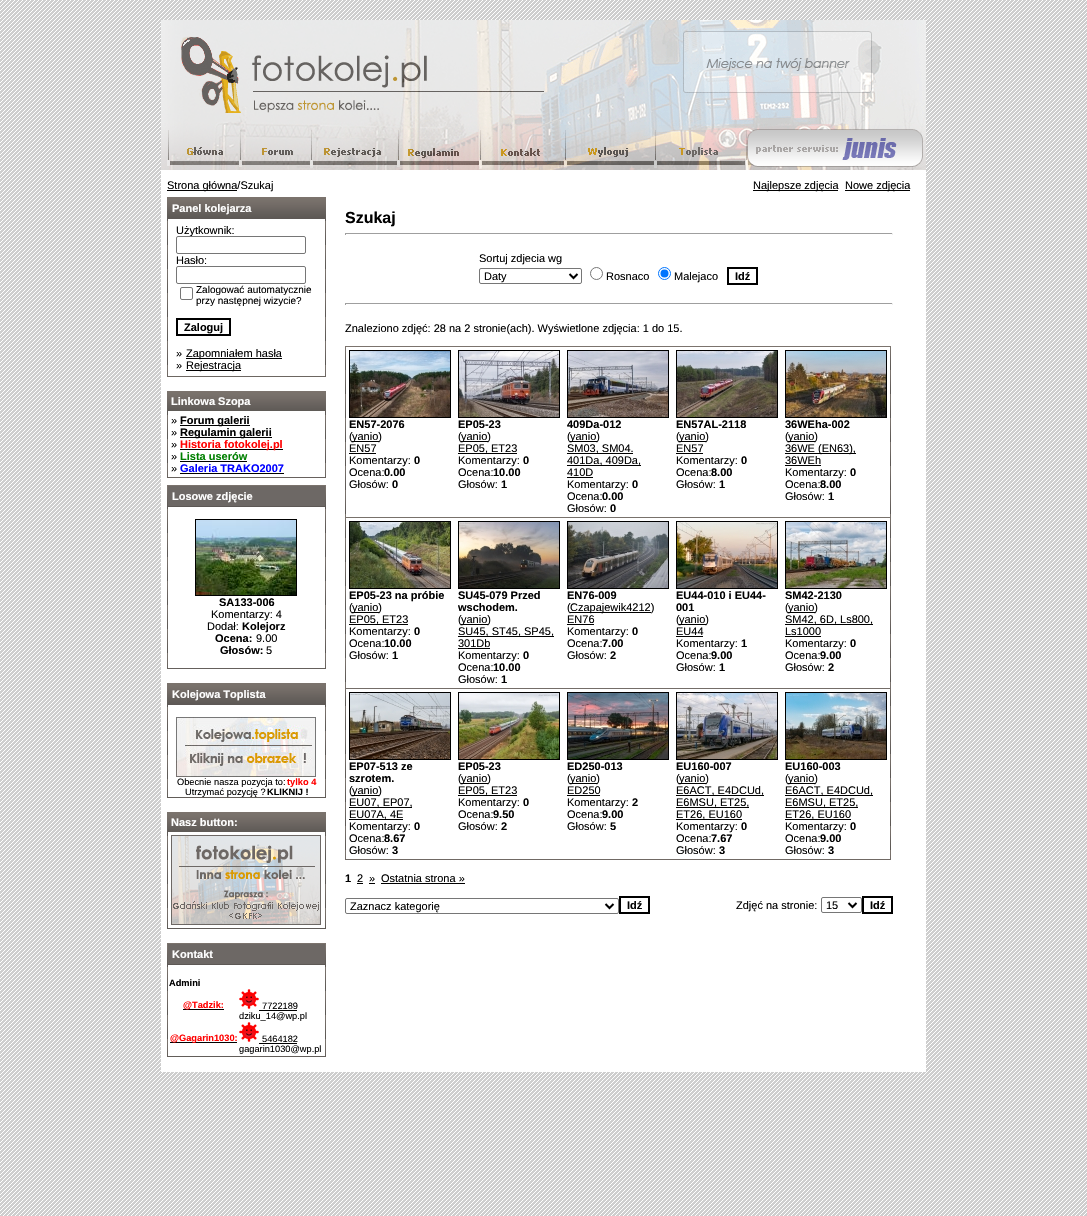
static SkFont makeFont(const char* family, int weight, float size, bool italic = false) {
  SkFontStyle style(weight, SkFontStyle::kNormal_Width,
    italic ? SkFontStyle::kItalic_Slant : SkFontStyle::kUpright_Slant);
  SkFont result(fontMgr->matchFamilyStyle(family, style), size);
  result.setSubpixel(true);
  return result;
}

static void text(SkCanvas* c, const char* s, float x, float y, const SkFont& font, SkColor color) {
  SkPaint ink(SkColor4f::FromColor(color));
  ink.setAntiAlias(true);
  c->drawString(s, x, y, font, ink);
}

static void box(SkCanvas* c, float l, float t, float r, float b, SkColor color) {
  SkPaint ink(SkColor4f::FromColor(color));
  ink.setAntiAlias(true);
  c->drawRect(SkRect::MakeLTRB(l, t, r, b), ink);
}

static void picture(SkCanvas* c, const char* path, float l, float t, float r, float b) {
  auto image = SkImages::DeferredFromEncodedData(SkData::MakeFromFileName(path));
  c->drawImageRect(image, SkRect::MakeLTRB(l, t, r, b), SkSamplingOptions());
}

void draw(SkCanvas* c) {
  SkPaint paint;
  paint.setAntiAlias(true);
  c->clear(0xffffffff);
  picture(c, "img_01.png", 0, 0, 1087, 1216);
  box(c, 161, 170, 926, 1072, 0xffffffff);
  picture(c, "img_02.png", 161, 20, 553, 126);
  picture(c, "img_03.png", 553, 20, 926, 126);
  picture(c, "img_04.png", 161, 126, 241, 170);
  picture(c, "img_05.png", 241, 126, 310, 170);
  picture(c, "img_06.png", 310, 126, 398, 170);
  picture(c, "img_07.png", 398, 126, 479, 170);
  picture(c, "img_08.png", 479, 126, 566, 170);
  picture(c, "img_09.png", 566, 126, 655, 170);
  picture(c, "img_10.png", 655, 126, 744, 170);
  picture(c, "img_11.png", 744, 126, 926, 170);
  box(c, 167, 190, 237, 191, 0xff000000);
  SkFont face1 = makeFont("Liberation Sans", 400, 11);
  text(c, "Strona główna/Szukaj", 167, 189, face1, 0xff000000);
  box(c, 753, 190, 838, 191, 0xff000000);
  text(c, "Najlepsze zdjęcia", 753, 189, face1, 0xff000000);
  box(c, 845, 190, 910, 191, 0xff000000);
  text(c, "Nowe zdjęcia", 845, 189, face1, 0xff000000);
  picture(c, "img_12.png", 167, 197, 326, 377);
  SkFont face2 = makeFont("Liberation Sans", 700, 11);
  text(c, "Panel kolejarza", 172, 212, face2, 0xffffffff);
  box(c, 168, 219, 325, 376, 0xffffffff);
  text(c, "Użytkownik:", 176, 234, face1, 0xff000000);
  paint.setColor(0xffffffff);
  c->drawRoundRect(SkRect::MakeLTRB(176.5f, 236.5f, 305.5f, 253.5f), 1.5f, 1.5f, paint);
  paint.setStyle(SkPaint::kStroke_Style);
  paint.setStrokeWidth(1);
  paint.setColor(0xff767676);
  c->drawRoundRect(SkRect::MakeLTRB(176.5f, 236.5f, 305.5f, 253.5f), 1.5f, 1.5f, paint);
  text(c, "Hasło:", 176, 264, face1, 0xff000000);
  c->drawRoundRect(SkRect::MakeLTRB(176.5f, 266.5f, 305.5f, 283.5f), 1.5f, 1.5f, paint);
  c->drawRoundRect(SkRect::MakeLTRB(180.5f, 287.5f, 192.5f, 299.5f), 1.5f, 1.5f, paint);
  SkFont face3 = makeFont("Liberation Sans", 400, 10);
  text(c, "Zalogować automatycznie", 196, 293, face3, 0xff000000);
  text(c, "przy następnej wizycie?", 196, 304, face3, 0xff000000);
  paint.setStrokeWidth(2);
  paint.setColor(0xff000000);
  c->drawRect(SkRect::MakeLTRB(177, 319, 230, 335), paint);
  text(c, "Zaloguj", 184, 331, face2, 0xff000000);
  text(c, "»", 176, 357, face1, 0xff000000);
  box(c, 186, 358, 282, 359, 0xff000000);
  text(c, "Zapomniałem hasła", 186, 357, face1, 0xff000000);
  text(c, "»", 176, 369, face1, 0xff000000);
  box(c, 186, 370, 241, 371, 0xff000000);
  text(c, "Rejestracja", 186, 369, face1, 0xff000000);
  picture(c, "img_13.png", 167, 391, 326, 478);
  text(c, "Linkowa Szopa", 171, 405, face2, 0xffffffff);
  box(c, 168, 411, 325, 477, 0xffffffff);
  text(c, "»", 171, 424, face1, 0xff000000);
  box(c, 180, 425, 250, 426, 0xff000000);
  text(c, "Forum galerii", 180, 424, face2, 0xff000000);
  text(c, "»", 171, 436, face1, 0xff000000);
  box(c, 180, 437, 272, 438, 0xff000000);
  text(c, "Regulamin galerii", 180, 436, face2, 0xff000000);
  text(c, "»", 171, 448, face1, 0xff000000);
  box(c, 180, 449, 283, 450, 0xff000000);
  text(c, "Historia fotokolej.pl", 180, 448, face2, 0xffff0000);
  text(c, "»", 171, 460, face1, 0xff000000);
  text(c, "Lista userów", 180, 460, face2, 0xff008000);
  box(c, 180, 461, 247, 462, 0xff000000);
  text(c, "»", 171, 472, face1, 0xff000000);
  text(c, "Galeria TRAKO2007", 180, 472, face2, 0xff0000ff);
  box(c, 180, 473, 284, 474, 0xff000000);
  picture(c, "img_14.png", 167, 485, 326, 669);
  box(c, 168, 486, 325, 506, 0xff6d6865);
  text(c, "Losowe zdjęcie", 172, 500, face2, 0xffffffff);
  box(c, 168, 507, 325, 668, 0xffffffff);
  paint.setStrokeWidth(1);
  c->drawRect(SkRect::MakeLTRB(195.5f, 519.5f, 296.5f, 595.5f), paint);
  picture(c, "img_15.png", 196, 520, 296, 595);
  text(c, "SA133-006", 219, 606, face2, 0xff000000);
  text(c, "Komentarzy: 4", 211, 618, face1, 0xff000000);
  text(c, "Dodał:", 207, 630, face1, 0xff000000);
  text(c, "Kolejorz", 242, 630, face2, 0xff000000);
  text(c, "Ocena:", 215, 642, face2, 0xff000000);
  text(c, "9.00", 256, 642, face1, 0xff000000);
  text(c, "Głosów:", 220, 654, face2, 0xff000000);
  text(c, "5", 266, 654, face1, 0xff000000);
  picture(c, "img_16.png", 167, 683, 326, 798);
  text(c, "Kolejowa Toplista", 172, 698, face2, 0xffffffff);
  box(c, 168, 705, 325, 797, 0xffffffff);
  picture(c, "img_17.png", 176, 717, 316, 777);
  SkFont face4 = makeFont("Liberation Sans", 400, 9.25f);
  text(c, "Obecnie nasza pozycja to:", 177, 785, face4, 0xff000000);
  SkFont face5 = makeFont("Liberation Sans", 700, 9.25f);
  text(c, "tylko 4", 287, 785, face5, 0xffff0000);
  text(c, "Utrzymać pozycję ?", 185, 795, face4, 0xff000000);
  text(c, "KLIKNIJ !", 267, 795, face5, 0xff000000);
  picture(c, "img_18.png", 167, 812, 326, 929);
  text(c, "Nasz button:", 171, 826, face2, 0xffffffff);
  box(c, 168, 832, 325, 928, 0xffffffff);
  picture(c, "img_19.png", 171, 835, 321, 925);
  picture(c, "img_20.png", 167, 943, 326, 1057);
  box(c, 168, 944, 325, 964, 0xff6d6865);
  text(c, "Kontakt", 172, 958, face2, 0xffffffff);
  box(c, 168, 965, 325, 1056, 0xffffffff);
  text(c, "Admini", 169, 986, face5, 0xff000000);
  box(c, 183, 1009, 224, 1010, 0xff000000);
  text(c, "@Tadzik:", 183, 1008, face5, 0xffff0000);
  picture(c, "img_21.png", 239, 989, 259, 1009);
  text(c, "7722189", 262, 1009, face4, 0xff000000);
  box(c, 259, 1010, 297, 1011, 0xff000000);
  text(c, "dziku_14@wp.pl", 239, 1019, face4, 0xff000000);
  box(c, 170, 1042, 237, 1043, 0xff000000);
  text(c, "@Gagarin1030:", 170, 1041, face5, 0xffff0000);
  picture(c, "img_21.png", 239, 1022, 259, 1042);
  text(c, "5464182", 262, 1042, face4, 0xff000000);
  box(c, 259, 1043, 297, 1044, 0xff000000);
  text(c, "gagarin1030@wp.pl", 239, 1052, face4, 0xff000000);
  SkFont face6 = makeFont("Liberation Sans", 700, 16);
  text(c, "Szukaj", 345, 223, face6, 0xff000000);
  box(c, 345, 233, 893, 234, 0xff9f9f9f);
  box(c, 892, 233, 893, 235, 0xffeeeeee);
  box(c, 345, 233, 346, 235, 0xff9f9f9f);
  text(c, "Sortuj zdjecia wg", 479, 262, face1, 0xff000000);
  paint.setColor(0xff767676);
  c->drawRoundRect(SkRect::MakeLTRB(479.5f, 268.5f, 581.5f, 283.5f), 1.5f, 1.5f, paint);
  paint.setStrokeWidth(2);
  paint.setColor(0xff000000);
  c->drawPath(SkPathBuilder().moveTo(569.5f, 274).lineTo(573.5f, 278).lineTo(577.5f, 274).detach(), paint);
  text(c, "Daty", 484, 280, face1, 0xff000000);
  paint.setStrokeWidth(1);
  paint.setColor(0xff767676);
  c->drawCircle(596.5f, 273.5f, 6, paint);
  text(c, "Rosnaco", 606, 280, face1, 0xff000000);
  paint.setColor(0xff0075ff);
  c->drawCircle(664.5f, 273.5f, 6, paint);
  paint.setStyle(SkPaint::kFill_Style);
  c->drawCircle(664.5f, 273.5f, 4, paint);
  text(c, "Malejaco", 674, 280, face1, 0xff000000);
  paint.setStyle(SkPaint::kStroke_Style);
  paint.setStrokeWidth(2);
  paint.setColor(0xff000000);
  c->drawRect(SkRect::MakeLTRB(728, 268, 757, 284), paint);
  text(c, "Idź", 735, 280, face2, 0xff000000);
  box(c, 345, 303, 893, 304, 0xff9f9f9f);
  box(c, 892, 303, 893, 305, 0xffeeeeee);
  box(c, 345, 303, 346, 305, 0xff9f9f9f);
  text(c, "Znaleziono zdjęć: 28 na 2 stronie(ach). Wyświetlone zdjęcia: 1 do 15.", 345, 332, face1, 0xff000000);
  picture(c, "img_22.png", 345, 346, 891, 860);
  box(c, 346, 347, 890, 517, 0xffffffff);
  paint.setStrokeWidth(1);
  c->drawRect(SkRect::MakeLTRB(349.5f, 350.5f, 450.5f, 417.5f), paint);
  picture(c, "img_23.png", 350, 351, 450, 417);
  text(c, "EN57-2076", 349, 428, face2, 0xff000000);
  text(c, "(", 349, 440, face1, 0xff000000);
  box(c, 352, 441, 379, 442, 0xff000000);
  text(c, "yanio)", 352, 440, face1, 0xff000000);
  text(c, "EN57", 349, 452, face1, 0xff000000);
  box(c, 349, 453, 376, 454, 0xff000000);
  text(c, "Komentarzy:", 349, 464, face1, 0xff000000);
  text(c, "0", 414, 464, face2, 0xff000000);
  text(c, "Ocena:", 349, 476, face1, 0xff000000);
  text(c, "0.00", 384, 476, face2, 0xff000000);
  text(c, "Głosów:", 349, 488, face1, 0xff000000);
  text(c, "0", 392, 488, face2, 0xff000000);
  c->drawRect(SkRect::MakeLTRB(458.5f, 350.5f, 559.5f, 417.5f), paint);
  picture(c, "img_24.png", 459, 351, 559, 417);
  text(c, "EP05-23", 458, 428, face2, 0xff000000);
  text(c, "(", 458, 440, face1, 0xff000000);
  box(c, 461, 441, 488, 442, 0xff000000);
  text(c, "yanio)", 461, 440, face1, 0xff000000);
  box(c, 458, 453, 517, 454, 0xff000000);
  text(c, "EP05, ET23", 458, 452, face1, 0xff000000);
  text(c, "Komentarzy:", 458, 464, face1, 0xff000000);
  text(c, "0", 523, 464, face2, 0xff000000);
  text(c, "Ocena:", 458, 476, face1, 0xff000000);
  text(c, "10.00", 493, 476, face2, 0xff000000);
  text(c, "Głosów:", 458, 488, face1, 0xff000000);
  text(c, "1", 501, 488, face2, 0xff000000);
  c->drawRect(SkRect::MakeLTRB(567.5f, 350.5f, 668.5f, 417.5f), paint);
  picture(c, "img_25.png", 568, 351, 668, 417);
  text(c, "409Da-012", 567, 428, face2, 0xff000000);
  text(c, "(", 567, 440, face1, 0xff000000);
  box(c, 570, 441, 597, 442, 0xff000000);
  text(c, "yanio)", 570, 440, face1, 0xff000000);
  box(c, 567, 453, 633, 454, 0xff000000);
  text(c, "SM03, SM04.", 567, 452, face1, 0xff000000);
  box(c, 567, 465, 641, 466, 0xff000000);
  text(c, "401Da, 409Da,", 567, 464, face1, 0xff000000);
  text(c, "410D", 567, 476, face1, 0xff000000);
  box(c, 567, 477, 593, 478, 0xff000000);
  text(c, "Komentarzy:", 567, 488, face1, 0xff000000);
  text(c, "0", 632, 488, face2, 0xff000000);
  text(c, "Ocena:", 567, 500, face1, 0xff000000);
  text(c, "0.00", 602, 500, face2, 0xff000000);
  text(c, "Głosów:", 567, 512, face1, 0xff000000);
  text(c, "0", 610, 512, face2, 0xff000000);
  c->drawRect(SkRect::MakeLTRB(676.5f, 350.5f, 777.5f, 417.5f), paint);
  picture(c, "img_26.png", 677, 351, 777, 417);
  text(c, "EN57AL-2118", 676, 428, face2, 0xff000000);
  text(c, "(", 676, 440, face1, 0xff000000);
  box(c, 679, 441, 706, 442, 0xff000000);
  text(c, "yanio)", 679, 440, face1, 0xff000000);
  text(c, "EN57", 676, 452, face1, 0xff000000);
  box(c, 676, 453, 703, 454, 0xff000000);
  text(c, "Komentarzy:", 676, 464, face1, 0xff000000);
  text(c, "0", 741, 464, face2, 0xff000000);
  text(c, "Ocena:", 676, 476, face1, 0xff000000);
  text(c, "8.00", 711, 476, face2, 0xff000000);
  text(c, "Głosów:", 676, 488, face1, 0xff000000);
  text(c, "1", 719, 488, face2, 0xff000000);
  c->drawRect(SkRect::MakeLTRB(785.5f, 350.5f, 886.5f, 417.5f), paint);
  picture(c, "img_27.png", 786, 351, 886, 417);
  text(c, "36WEha-002", 785, 428, face2, 0xff000000);
  text(c, "(", 785, 440, face1, 0xff000000);
  box(c, 788, 441, 815, 442, 0xff000000);
  text(c, "yanio)", 788, 440, face1, 0xff000000);
  box(c, 785, 453, 856, 454, 0xff000000);
  text(c, "36WE (EN63),", 785, 452, face1, 0xff000000);
  text(c, "36WEh", 785, 464, face1, 0xff000000);
  box(c, 785, 465, 821, 466, 0xff000000);
  text(c, "Komentarzy:", 785, 476, face1, 0xff000000);
  text(c, "0", 850, 476, face2, 0xff000000);
  text(c, "Ocena:", 785, 488, face1, 0xff000000);
  text(c, "8.00", 820, 488, face2, 0xff000000);
  text(c, "Głosów:", 785, 500, face1, 0xff000000);
  text(c, "1", 828, 500, face2, 0xff000000);
  box(c, 346, 518, 890, 688, 0xffffffff);
  c->drawRect(SkRect::MakeLTRB(349.5f, 521.5f, 450.5f, 588.5f), paint);
  picture(c, "img_28.png", 350, 522, 450, 588);
  text(c, "EP05-23 na próbie", 349, 599, face2, 0xff000000);
  text(c, "(", 349, 611, face1, 0xff000000);
  box(c, 352, 612, 379, 613, 0xff000000);
  text(c, "yanio)", 352, 611, face1, 0xff000000);
  box(c, 349, 624, 408, 625, 0xff000000);
  text(c, "EP05, ET23", 349, 623, face1, 0xff000000);
  text(c, "Komentarzy:", 349, 635, face1, 0xff000000);
  text(c, "0", 414, 635, face2, 0xff000000);
  text(c, "Ocena:", 349, 647, face1, 0xff000000);
  text(c, "10.00", 384, 647, face2, 0xff000000);
  text(c, "Głosów:", 349, 659, face1, 0xff000000);
  text(c, "1", 392, 659, face2, 0xff000000);
  c->drawRect(SkRect::MakeLTRB(458.5f, 521.5f, 559.5f, 588.5f), paint);
  picture(c, "img_29.png", 459, 522, 559, 588);
  text(c, "SU45-079 Przed", 458, 599, face2, 0xff000000);
  text(c, "wschodem.", 458, 611, face2, 0xff000000);
  text(c, "(", 458, 623, face1, 0xff000000);
  box(c, 461, 624, 488, 625, 0xff000000);
  text(c, "yanio)", 461, 623, face1, 0xff000000);
  box(c, 458, 636, 554, 637, 0xff000000);
  text(c, "SU45, ST45, SP45,", 458, 635, face1, 0xff000000);
  text(c, "301Db", 458, 647, face1, 0xff000000);
  box(c, 458, 648, 490, 649, 0xff000000);
  text(c, "Komentarzy:", 458, 659, face1, 0xff000000);
  text(c, "0", 523, 659, face2, 0xff000000);
  text(c, "Ocena:", 458, 671, face1, 0xff000000);
  text(c, "10.00", 493, 671, face2, 0xff000000);
  text(c, "Głosów:", 458, 683, face1, 0xff000000);
  text(c, "1", 501, 683, face2, 0xff000000);
  c->drawRect(SkRect::MakeLTRB(567.5f, 521.5f, 668.5f, 588.5f), paint);
  picture(c, "img_30.png", 568, 522, 668, 588);
  text(c, "EN76-009", 567, 599, face2, 0xff000000);
  text(c, "(", 567, 611, face1, 0xff000000);
  box(c, 570, 612, 651, 613, 0xff000000);
  text(c, "Czapajewik4212)", 570, 611, face1, 0xff000000);
  text(c, "EN76", 567, 623, face1, 0xff000000);
  box(c, 567, 624, 594, 625, 0xff000000);
  text(c, "Komentarzy:", 567, 635, face1, 0xff000000);
  text(c, "0", 632, 635, face2, 0xff000000);
  text(c, "Ocena:", 567, 647, face1, 0xff000000);
  text(c, "7.00", 602, 647, face2, 0xff000000);
  text(c, "Głosów:", 567, 659, face1, 0xff000000);
  text(c, "2", 610, 659, face2, 0xff000000);
  c->drawRect(SkRect::MakeLTRB(676.5f, 521.5f, 777.5f, 588.5f), paint);
  picture(c, "img_31.png", 677, 522, 777, 588);
  text(c, "EU44-010 i EU44-", 676, 599, face2, 0xff000000);
  text(c, "001", 676, 611, face2, 0xff000000);
  text(c, "(", 676, 623, face1, 0xff000000);
  box(c, 679, 624, 706, 625, 0xff000000);
  text(c, "yanio)", 679, 623, face1, 0xff000000);
  text(c, "EU44", 676, 635, face1, 0xff000000);
  box(c, 676, 636, 703, 637, 0xff000000);
  text(c, "Komentarzy:", 676, 647, face1, 0xff000000);
  text(c, "1", 741, 647, face2, 0xff000000);
  text(c, "Ocena:", 676, 659, face1, 0xff000000);
  text(c, "9.00", 711, 659, face2, 0xff000000);
  text(c, "Głosów:", 676, 671, face1, 0xff000000);
  text(c, "1", 719, 671, face2, 0xff000000);
  c->drawRect(SkRect::MakeLTRB(785.5f, 521.5f, 886.5f, 588.5f), paint);
  picture(c, "img_32.png", 786, 522, 886, 588);
  text(c, "SM42-2130", 785, 599, face2, 0xff000000);
  text(c, "(", 785, 611, face1, 0xff000000);
  box(c, 788, 612, 815, 613, 0xff000000);
  text(c, "yanio)", 788, 611, face1, 0xff000000);
  box(c, 785, 624, 873, 625, 0xff000000);
  text(c, "SM42, 6D, Ls800,", 785, 623, face1, 0xff000000);
  text(c, "Ls1000", 785, 635, face1, 0xff000000);
  box(c, 785, 636, 821, 637, 0xff000000);
  text(c, "Komentarzy:", 785, 647, face1, 0xff000000);
  text(c, "0", 850, 647, face2, 0xff000000);
  text(c, "Ocena:", 785, 659, face1, 0xff000000);
  text(c, "9.00", 820, 659, face2, 0xff000000);
  text(c, "Głosów:", 785, 671, face1, 0xff000000);
  text(c, "2", 828, 671, face2, 0xff000000);
  box(c, 346, 689, 890, 859, 0xffffffff);
  c->drawRect(SkRect::MakeLTRB(349.5f, 692.5f, 450.5f, 759.5f), paint);
  picture(c, "img_33.png", 350, 693, 450, 759);
  text(c, "EP07-513 ze", 349, 770, face2, 0xff000000);
  text(c, "szrotem.", 349, 782, face2, 0xff000000);
  text(c, "(", 349, 794, face1, 0xff000000);
  box(c, 352, 795, 379, 796, 0xff000000);
  text(c, "yanio)", 352, 794, face1, 0xff000000);
  box(c, 349, 807, 412, 808, 0xff000000);
  text(c, "EU07, EP07,", 349, 806, face1, 0xff000000);
  box(c, 349, 819, 403, 820, 0xff000000);
  text(c, "EU07A, 4E", 349, 818, face1, 0xff000000);
  text(c, "Komentarzy:", 349, 830, face1, 0xff000000);
  text(c, "0", 414, 830, face2, 0xff000000);
  text(c, "Ocena:", 349, 842, face1, 0xff000000);
  text(c, "8.67", 384, 842, face2, 0xff000000);
  text(c, "Głosów:", 349, 854, face1, 0xff000000);
  text(c, "3", 392, 854, face2, 0xff000000);
  c->drawRect(SkRect::MakeLTRB(458.5f, 692.5f, 559.5f, 759.5f), paint);
  picture(c, "img_34.png", 459, 693, 559, 759);
  text(c, "EP05-23", 458, 770, face2, 0xff000000);
  text(c, "(", 458, 782, face1, 0xff000000);
  box(c, 461, 783, 488, 784, 0xff000000);
  text(c, "yanio)", 461, 782, face1, 0xff000000);
  box(c, 458, 795, 517, 796, 0xff000000);
  text(c, "EP05, ET23", 458, 794, face1, 0xff000000);
  text(c, "Komentarzy:", 458, 806, face1, 0xff000000);
  text(c, "0", 523, 806, face2, 0xff000000);
  text(c, "Ocena:", 458, 818, face1, 0xff000000);
  text(c, "9.50", 493, 818, face2, 0xff000000);
  text(c, "Głosów:", 458, 830, face1, 0xff000000);
  text(c, "2", 501, 830, face2, 0xff000000);
  c->drawRect(SkRect::MakeLTRB(567.5f, 692.5f, 668.5f, 759.5f), paint);
  picture(c, "img_35.png", 568, 693, 668, 759);
  text(c, "ED250-013", 567, 770, face2, 0xff000000);
  text(c, "(", 567, 782, face1, 0xff000000);
  box(c, 570, 783, 597, 784, 0xff000000);
  text(c, "yanio)", 570, 782, face1, 0xff000000);
  text(c, "ED250", 567, 794, face1, 0xff000000);
  box(c, 567, 795, 600, 796, 0xff000000);
  text(c, "Komentarzy:", 567, 806, face1, 0xff000000);
  text(c, "2", 632, 806, face2, 0xff000000);
  text(c, "Ocena:", 567, 818, face1, 0xff000000);
  text(c, "9.00", 602, 818, face2, 0xff000000);
  text(c, "Głosów:", 567, 830, face1, 0xff000000);
  text(c, "5", 610, 830, face2, 0xff000000);
  c->drawRect(SkRect::MakeLTRB(676.5f, 692.5f, 777.5f, 759.5f), paint);
  picture(c, "img_36.png", 677, 693, 777, 759);
  text(c, "EU160-007", 676, 770, face2, 0xff000000);
  text(c, "(", 676, 782, face1, 0xff000000);
  box(c, 679, 783, 706, 784, 0xff000000);
  text(c, "yanio)", 679, 782, face1, 0xff000000);
  box(c, 676, 795, 764, 796, 0xff000000);
  text(c, "E6ACT, E4DCUd,", 676, 794, face1, 0xff000000);
  box(c, 676, 807, 749, 808, 0xff000000);
  text(c, "E6MSU, ET25,", 676, 806, face1, 0xff000000);
  box(c, 676, 819, 742, 820, 0xff000000);
  text(c, "ET26, EU160", 676, 818, face1, 0xff000000);
  text(c, "Komentarzy:", 676, 830, face1, 0xff000000);
  text(c, "0", 741, 830, face2, 0xff000000);
  text(c, "Ocena:", 676, 842, face1, 0xff000000);
  text(c, "7.67", 711, 842, face2, 0xff000000);
  text(c, "Głosów:", 676, 854, face1, 0xff000000);
  text(c, "3", 719, 854, face2, 0xff000000);
  c->drawRect(SkRect::MakeLTRB(785.5f, 692.5f, 886.5f, 759.5f), paint);
  picture(c, "img_37.png", 786, 693, 886, 759);
  text(c, "EU160-003", 785, 770, face2, 0xff000000);
  text(c, "(", 785, 782, face1, 0xff000000);
  box(c, 788, 783, 815, 784, 0xff000000);
  text(c, "yanio)", 788, 782, face1, 0xff000000);
  box(c, 785, 795, 873, 796, 0xff000000);
  text(c, "E6ACT, E4DCUd,", 785, 794, face1, 0xff000000);
  box(c, 785, 807, 858, 808, 0xff000000);
  text(c, "E6MSU, ET25,", 785, 806, face1, 0xff000000);
  box(c, 785, 819, 851, 820, 0xff000000);
  text(c, "ET26, EU160", 785, 818, face1, 0xff000000);
  text(c, "Komentarzy:", 785, 830, face1, 0xff000000);
  text(c, "0", 850, 830, face2, 0xff000000);
  text(c, "Ocena:", 785, 842, face1, 0xff000000);
  text(c, "9.00", 820, 842, face2, 0xff000000);
  text(c, "Głosów:", 785, 854, face1, 0xff000000);
  text(c, "3", 828, 854, face2, 0xff000000);
  text(c, "1", 345, 882, face2, 0xff000000);
  text(c, "2", 357, 882, face1, 0xff000000);
  box(c, 357, 883, 363, 884, 0xff000000);
  text(c, "»", 369, 882, face1, 0xff000000);
  box(c, 369, 883, 375, 884, 0xff000000);
  text(c, "Ostatnia strona »", 381, 882, face1, 0xff000000);
  box(c, 381, 883, 465, 884, 0xff000000);
  paint.setColor(0xff767676);
  c->drawRoundRect(SkRect::MakeLTRB(345.5f, 898.5f, 618.5f, 913.5f), 1.5f, 1.5f, paint);
  paint.setStrokeWidth(2);
  paint.setColor(0xff000000);
  c->drawPath(SkPathBuilder().moveTo(605.5f, 904).lineTo(609.5f, 908).lineTo(613.5f, 904).detach(), paint);
  text(c, "Zaznacz kategorię", 350, 910, face1, 0xff000000);
  c->drawRect(SkRect::MakeLTRB(620, 897, 649, 913), paint);
  text(c, "Idź", 627, 909, face2, 0xff000000);
  text(c, "Zdjęć na stronie:", 736, 909, face1, 0xff000000);
  paint.setStrokeWidth(1);
  paint.setColor(0xff767676);
  c->drawRoundRect(SkRect::MakeLTRB(821.5f, 897.5f, 861.5f, 912.5f), 1.5f, 1.5f, paint);
  paint.setStrokeWidth(2);
  paint.setColor(0xff000000);
  c->drawPath(SkPathBuilder().moveTo(848.5f, 903).lineTo(852.5f, 907).lineTo(856.5f, 903).detach(), paint);
  text(c, "15", 826, 909, face1, 0xff000000);
  c->drawRect(SkRect::MakeLTRB(863, 897, 892, 913), paint);
  text(c, "Idź", 870, 909, face2, 0xff000000);
}
